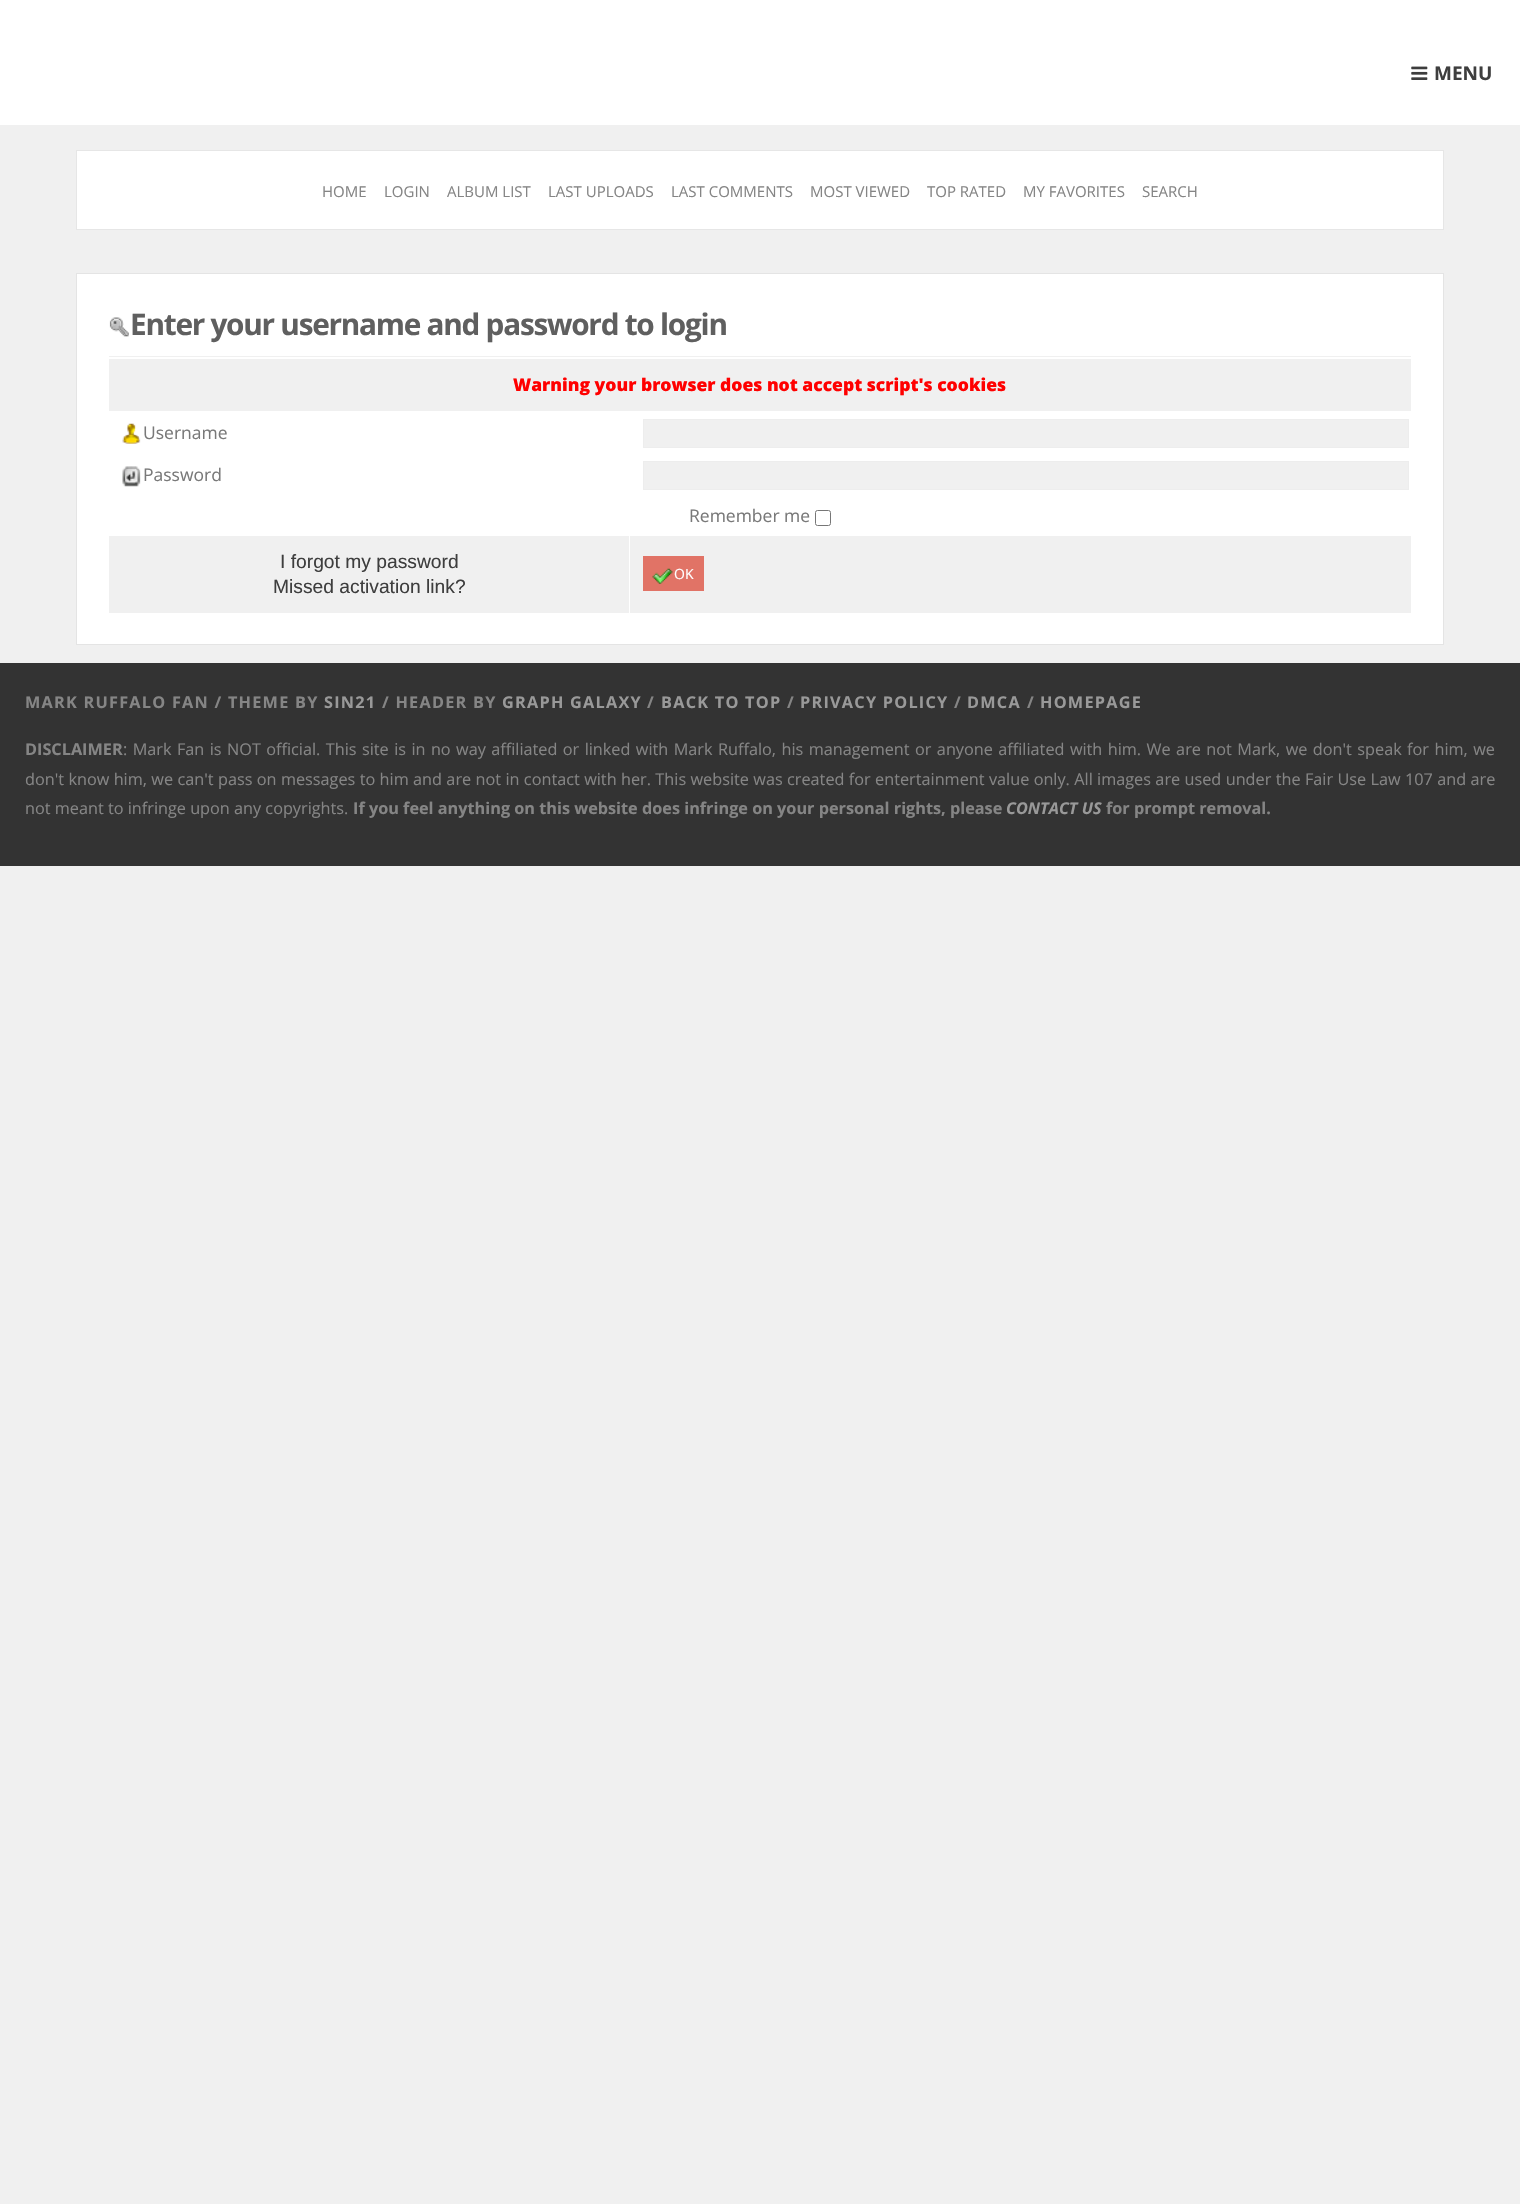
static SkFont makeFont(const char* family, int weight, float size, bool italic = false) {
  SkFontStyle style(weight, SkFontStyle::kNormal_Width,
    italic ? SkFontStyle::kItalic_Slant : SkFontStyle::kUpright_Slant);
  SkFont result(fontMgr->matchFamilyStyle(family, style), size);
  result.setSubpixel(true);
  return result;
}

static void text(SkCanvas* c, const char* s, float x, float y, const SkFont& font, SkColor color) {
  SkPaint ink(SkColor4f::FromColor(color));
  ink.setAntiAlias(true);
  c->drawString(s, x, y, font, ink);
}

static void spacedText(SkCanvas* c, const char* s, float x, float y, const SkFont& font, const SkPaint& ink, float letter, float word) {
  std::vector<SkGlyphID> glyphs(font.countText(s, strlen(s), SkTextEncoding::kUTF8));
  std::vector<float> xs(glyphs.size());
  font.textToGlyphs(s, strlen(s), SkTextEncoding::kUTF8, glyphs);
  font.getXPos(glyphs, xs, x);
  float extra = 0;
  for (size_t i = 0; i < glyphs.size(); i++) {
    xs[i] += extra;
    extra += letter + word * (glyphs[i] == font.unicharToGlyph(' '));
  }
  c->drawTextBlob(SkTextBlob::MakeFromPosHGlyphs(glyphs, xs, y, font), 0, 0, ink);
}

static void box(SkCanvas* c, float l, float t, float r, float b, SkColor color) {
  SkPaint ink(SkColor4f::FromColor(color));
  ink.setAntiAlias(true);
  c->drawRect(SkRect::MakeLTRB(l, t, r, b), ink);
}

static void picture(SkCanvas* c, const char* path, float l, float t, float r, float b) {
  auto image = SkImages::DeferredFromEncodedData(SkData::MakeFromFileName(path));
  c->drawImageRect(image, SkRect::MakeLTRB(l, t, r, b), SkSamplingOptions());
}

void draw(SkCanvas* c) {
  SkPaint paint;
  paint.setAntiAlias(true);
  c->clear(0xfff0f0f0);
  box(c, 0, 0, 1520, 125, 0xffffffff);
  picture(c, "img_01.png", 1411, 66, 1428, 80);
  SkFont face1 = makeFont("Open Sans", 700, 19);
  text(c, "MENU", 1434, 80, face1, 0xff3e3e3e);
  paint.setColor(0xffffffff);
  c->drawRect(SkRect::MakeLTRB(76.5f, 150.5f, 1443.5f, 229.5f), paint);
  paint.setStyle(SkPaint::kStroke_Style);
  paint.setStrokeWidth(1);
  paint.setColor(0xffe6e6e6);
  c->drawRect(SkRect::MakeLTRB(76.5f, 150.5f, 1443.5f, 229.5f), paint);
  SkFont face2 = makeFont("Open Sans", 400, 15);
  text(c, "HOME", 322, 197, face2, 0xff858585);
  text(c, "LOGIN", 384, 197, face2, 0xff858585);
  text(c, "ALBUM LIST", 447, 197, face2, 0xff858585);
  text(c, "LAST UPLOADS", 548, 197, face2, 0xff858585);
  text(c, "LAST COMMENTS", 671, 197, face2, 0xff858585);
  text(c, "MOST VIEWED", 810, 197, face2, 0xff858585);
  text(c, "TOP RATED", 927, 197, face2, 0xff858585);
  text(c, "MY FAVORITES", 1023, 197, face2, 0xff858585);
  text(c, "SEARCH", 1142, 197, face2, 0xff858585);
  paint.setStyle(SkPaint::kFill_Style);
  paint.setColor(0xffffffff);
  c->drawRect(SkRect::MakeLTRB(76.5f, 273.5f, 1443.5f, 644.5f), paint);
  paint.setStyle(SkPaint::kStroke_Style);
  paint.setColor(0xffe4e4e4);
  c->drawRect(SkRect::MakeLTRB(76.5f, 273.5f, 1443.5f, 644.5f), paint);
  box(c, 109, 356, 1411, 357, 0xfff0f0f0);
  picture(c, "img_02.png", 109, 317, 129, 337);
  SkFont face3 = makeFont("Open Sans", 700, 29.75f);
  paint.setStyle(SkPaint::kFill_Style);
  paint.setColor(0xff5f5f5f);
  spacedText(c, "Enter your username and password to login", 130, 335, face3, paint, -1.25f, 0);
  box(c, 109, 359, 1411, 411, 0xfff0f0f0);
  SkFont face4 = makeFont("Open Sans", 800, 17.5f);
  text(c, "Warning your browser does not accept script's cookies", 513, 391, face4, 0xffff0000);
  picture(c, "img_03.png", 122, 423, 141, 444);
  SkFont face5 = makeFont("Open Sans", 400, 17.5f);
  text(c, "Username", 143, 439, face5, 0xff797979);
  paint.setColor(0xfff0f0f0);
  c->drawRect(SkRect::MakeLTRB(643.5f, 419.5f, 1408.5f, 447.5f), paint);
  paint.setStyle(SkPaint::kStroke_Style);
  paint.setColor(0xffededed);
  c->drawRect(SkRect::MakeLTRB(643.5f, 419.5f, 1408.5f, 447.5f), paint);
  picture(c, "img_04.png", 122, 466, 141, 487);
  text(c, "Password", 143, 481, face5, 0xff797979);
  paint.setStyle(SkPaint::kFill_Style);
  paint.setColor(0xfff0f0f0);
  c->drawRect(SkRect::MakeLTRB(643.5f, 461.5f, 1408.5f, 489.5f), paint);
  paint.setStyle(SkPaint::kStroke_Style);
  paint.setColor(0xffededed);
  c->drawRect(SkRect::MakeLTRB(643.5f, 461.5f, 1408.5f, 489.5f), paint);
  text(c, "Remember me", 689, 522, face5, 0xff797979);
  paint.setColor(0xff767676);
  c->drawRoundRect(SkRect::MakeLTRB(815.5f, 510.5f, 830.5f, 525.5f), 2, 2, paint);
  box(c, 109, 536, 629, 613, 0xfff0f0f0);
  SkFont face6 = makeFont("Liberation Sans", 400, 19.25f);
  text(c, "I forgot my password", 280, 568, face6, 0xff3e3e3e);
  text(c, "Missed activation link?", 273, 593, face6, 0xff3e3e3e);
  box(c, 630, 536, 1411, 613, 0xfff0f0f0);
  box(c, 643, 556, 704, 591, 0xffe17366);
  picture(c, "img_05.png", 652, 568, 673, 584);
  SkFont face7 = makeFont("Open Sans", 400, 14);
  text(c, "OK", 674, 579, face7, 0xffffffff);
  box(c, 0, 663, 1520, 866, 0xff333333);
  SkFont face8 = makeFont("Open Sans", 700, 16.25f);
  paint.setStyle(SkPaint::kFill_Style);
  paint.setColor(0xff858585);
  spacedText(c, "MARK RUFFALO FAN / THEME BY", 25, 708, face8, paint, 1.25f, 0);
  paint.setColor(0xff999999);
  spacedText(c, "SIN21", 324, 708, face8, paint, 1.25f, 0);
  paint.setColor(0xff858585);
  spacedText(c, "/ HEADER BY", 382, 708, face8, paint, 1.25f, 0);
  paint.setColor(0xff999999);
  spacedText(c, "GRAPH GALAXY", 502, 708, face8, paint, 1.25f, 0);
  paint.setColor(0xff858585);
  spacedText(c, "/", 647, 708, face8, paint, 1.25f, 0);
  paint.setColor(0xff999999);
  spacedText(c, "BACK TO TOP", 661, 708, face8, paint, 1.25f, 0);
  paint.setColor(0xff858585);
  spacedText(c, "/", 787, 708, face8, paint, 1.25f, 0);
  paint.setColor(0xff999999);
  spacedText(c, "PRIVACY POLICY", 800, 708, face8, paint, 1.25f, 0);
  paint.setColor(0xff858585);
  spacedText(c, "/", 954, 708, face8, paint, 1.25f, 0);
  paint.setColor(0xff999999);
  spacedText(c, "DMCA", 967, 708, face8, paint, 1.25f, 0);
  paint.setColor(0xff858585);
  spacedText(c, "/", 1027, 708, face8, paint, 1.25f, 0);
  paint.setColor(0xff999999);
  spacedText(c, "HOMEPAGE", 1040, 708, face8, paint, 1.25f, 0);
  text(c, "DISCLAIMER", 25, 755, face8, 0xff858585);
  SkFont face9 = makeFont("Open Sans", 400, 16.25f);
  paint.setColor(0xff858585);
  spacedText(c, ": Mark Fan is NOT official. This site is in no way affiliated or linked with Mark Ruffalo, his management or anyone affiliated with him. We are not Mark, we don't speak for him, we", 123, 755, face9, paint, 0, 1.2f);
  spacedText(c, "don't know him, we can't pass on messages to him and are not in contact with her. This website was created for entertainment value only. All images are used under the Fair Use Law 107 and are", 25, 785, face9, paint, 0, 0.15f);
  text(c, "not meant to infringe upon any copyrights.", 25, 814, face9, 0xff858585);
  text(c, "If you feel anything on this website does infringe on your personal rights, please", 353, 814, face8, 0xff858585);
  SkFont face10 = makeFont("Open Sans", 700, 16.25f, true);
  text(c, "CONTACT US", 1006, 814, face10, 0xff999999);
  text(c, "for prompt removal.", 1106, 814, face8, 0xff858585);
}
